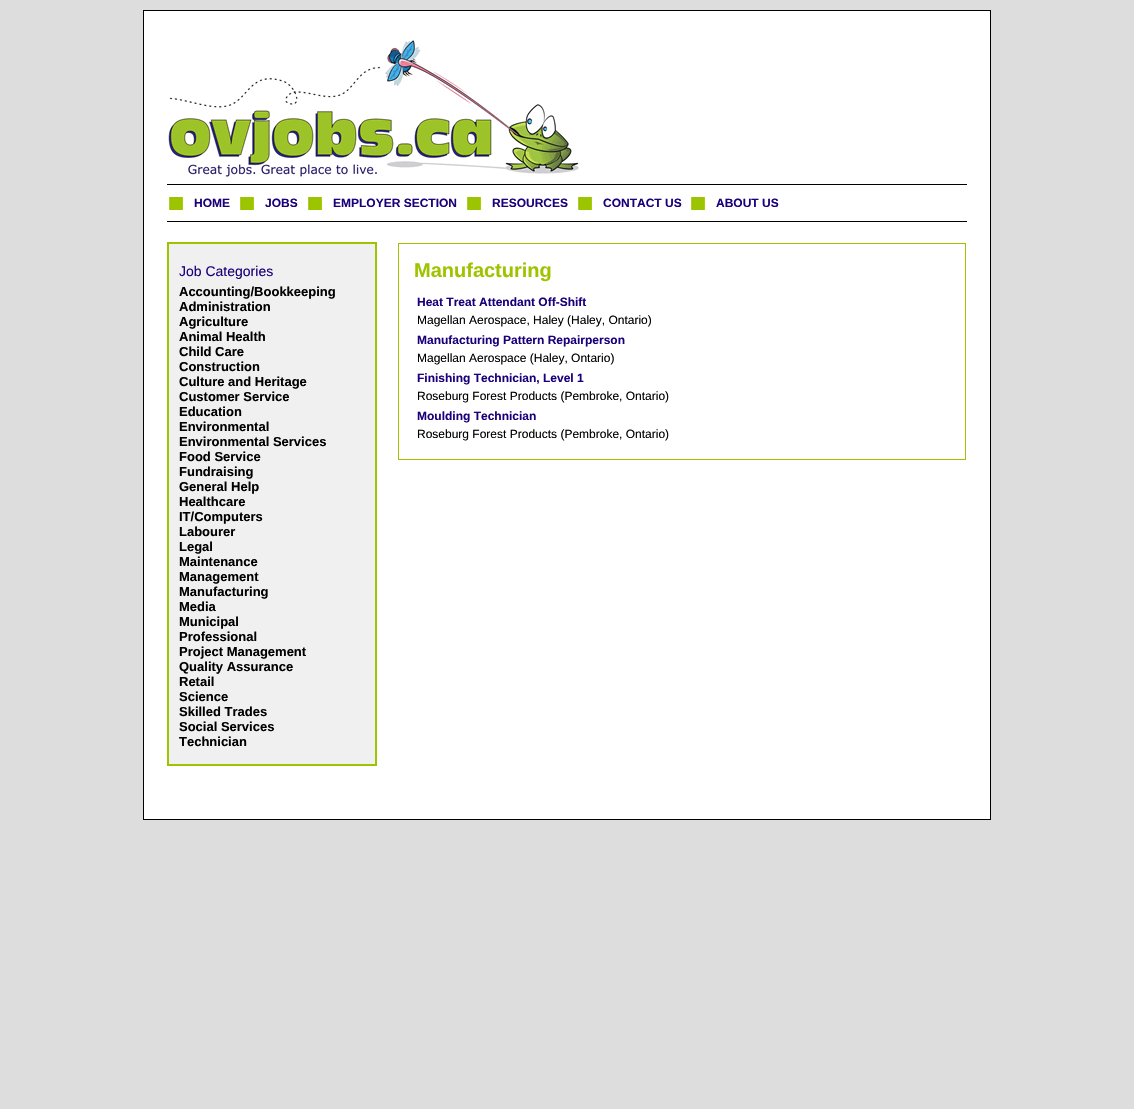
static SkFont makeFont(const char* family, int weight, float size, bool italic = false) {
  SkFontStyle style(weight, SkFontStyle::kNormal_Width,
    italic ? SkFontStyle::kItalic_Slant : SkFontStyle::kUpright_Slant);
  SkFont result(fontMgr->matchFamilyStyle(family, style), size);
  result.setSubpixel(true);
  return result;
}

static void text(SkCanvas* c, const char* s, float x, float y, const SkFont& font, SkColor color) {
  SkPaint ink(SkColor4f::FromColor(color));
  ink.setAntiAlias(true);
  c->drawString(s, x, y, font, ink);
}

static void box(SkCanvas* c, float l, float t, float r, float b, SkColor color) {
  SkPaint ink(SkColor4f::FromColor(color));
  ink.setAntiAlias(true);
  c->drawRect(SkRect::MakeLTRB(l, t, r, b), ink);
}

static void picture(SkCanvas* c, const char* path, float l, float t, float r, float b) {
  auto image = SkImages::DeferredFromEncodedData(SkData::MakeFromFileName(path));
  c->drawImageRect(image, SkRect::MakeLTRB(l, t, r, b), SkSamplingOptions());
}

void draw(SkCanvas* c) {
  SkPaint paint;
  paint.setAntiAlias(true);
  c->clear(0xffdddddd);
  paint.setColor(0xffffffff);
  c->drawRect(SkRect::MakeLTRB(143.5f, 10.5f, 990.5f, 819.5f), paint);
  paint.setStyle(SkPaint::kStroke_Style);
  paint.setStrokeWidth(1);
  paint.setColor(0xff000000);
  c->drawRect(SkRect::MakeLTRB(143.5f, 10.5f, 990.5f, 819.5f), paint);
  picture(c, "img_01.png", 168, 40, 579, 177);
  box(c, 167, 184, 967, 185, 0xff000000);
  box(c, 167, 221, 967, 222, 0xff000000);
  picture(c, "img_02.png", 169, 197, 183, 210);
  SkFont face1 = makeFont("Liberation Sans", 700, 12);
  text(c, "HOME", 194, 207, face1, 0xff1c007a);
  picture(c, "img_02.png", 240, 197, 254, 210);
  text(c, "JOBS", 265, 207, face1, 0xff1c007a);
  picture(c, "img_02.png", 308, 197, 322, 210);
  text(c, "EMPLOYER SECTION", 333, 207, face1, 0xff1c007a);
  picture(c, "img_02.png", 467, 197, 481, 210);
  text(c, "RESOURCES", 492, 207, face1, 0xff1c007a);
  picture(c, "img_02.png", 578, 197, 592, 210);
  text(c, "CONTACT US", 603, 207, face1, 0xff1c007a);
  picture(c, "img_02.png", 691, 197, 705, 210);
  text(c, "ABOUT US", 716, 207, face1, 0xff1c007a);
  box(c, 169, 244, 375, 764, 0xfff0f0f0);
  box(c, 167, 242, 377, 244, 0xff9ec400);
  box(c, 375, 242, 377, 766, 0xff9ec400);
  box(c, 167, 764, 377, 766, 0xff9ec400);
  box(c, 167, 242, 169, 766, 0xff9ec400);
  SkFont face2 = makeFont("Liberation Sans", 400, 14);
  text(c, "Job Categories", 179, 276, face2, 0xff1c007a);
  SkFont face3 = makeFont("Liberation Sans", 700, 13);
  text(c, "Accounting/Bookkeeping", 179, 296, face3, 0xff000000);
  text(c, "Administration", 179, 311, face3, 0xff000000);
  text(c, "Agriculture", 179, 326, face3, 0xff000000);
  text(c, "Animal Health", 179, 341, face3, 0xff000000);
  text(c, "Child Care", 179, 356, face3, 0xff000000);
  text(c, "Construction", 179, 371, face3, 0xff000000);
  text(c, "Culture and Heritage", 179, 386, face3, 0xff000000);
  text(c, "Customer Service", 179, 401, face3, 0xff000000);
  text(c, "Education", 179, 416, face3, 0xff000000);
  text(c, "Environmental", 179, 431, face3, 0xff000000);
  text(c, "Environmental Services", 179, 446, face3, 0xff000000);
  text(c, "Food Service", 179, 461, face3, 0xff000000);
  text(c, "Fundraising", 179, 476, face3, 0xff000000);
  text(c, "General Help", 179, 491, face3, 0xff000000);
  text(c, "Healthcare", 179, 506, face3, 0xff000000);
  text(c, "IT/Computers", 179, 521, face3, 0xff000000);
  text(c, "Labourer", 179, 536, face3, 0xff000000);
  text(c, "Legal", 179, 551, face3, 0xff000000);
  text(c, "Maintenance", 179, 566, face3, 0xff000000);
  text(c, "Management", 179, 581, face3, 0xff000000);
  text(c, "Manufacturing", 179, 596, face3, 0xff000000);
  text(c, "Media", 179, 611, face3, 0xff000000);
  text(c, "Municipal", 179, 626, face3, 0xff000000);
  text(c, "Professional", 179, 641, face3, 0xff000000);
  text(c, "Project Management", 179, 656, face3, 0xff000000);
  text(c, "Quality Assurance", 179, 671, face3, 0xff000000);
  text(c, "Retail", 179, 686, face3, 0xff000000);
  text(c, "Science", 179, 701, face3, 0xff000000);
  text(c, "Skilled Trades", 179, 716, face3, 0xff000000);
  text(c, "Social Services", 179, 731, face3, 0xff000000);
  text(c, "Technician", 179, 746, face3, 0xff000000);
  paint.setColor(0xff9ec400);
  c->drawRect(SkRect::MakeLTRB(398.5f, 243.5f, 965.5f, 459.5f), paint);
  SkFont face4 = makeFont("Liberation Sans", 700, 20);
  text(c, "Manufacturing", 414, 277, face4, 0xff9ec400);
  text(c, "Heat Treat Attendant Off-Shift", 417, 306, face1, 0xff1c007a);
  SkFont face5 = makeFont("Liberation Sans", 400, 12);
  text(c, "Magellan Aerospace, Haley (Haley, Ontario)", 417, 324, face5, 0xff000000);
  text(c, "Manufacturing Pattern Repairperson", 417, 344, face1, 0xff1c007a);
  text(c, "Magellan Aerospace (Haley, Ontario)", 417, 362, face5, 0xff000000);
  text(c, "Finishing Technician, Level 1", 417, 382, face1, 0xff1c007a);
  text(c, "Roseburg Forest Products (Pembroke, Ontario)", 417, 400, face5, 0xff000000);
  text(c, "Moulding Technician", 417, 420, face1, 0xff1c007a);
  text(c, "Roseburg Forest Products (Pembroke, Ontario)", 417, 438, face5, 0xff000000);
}
